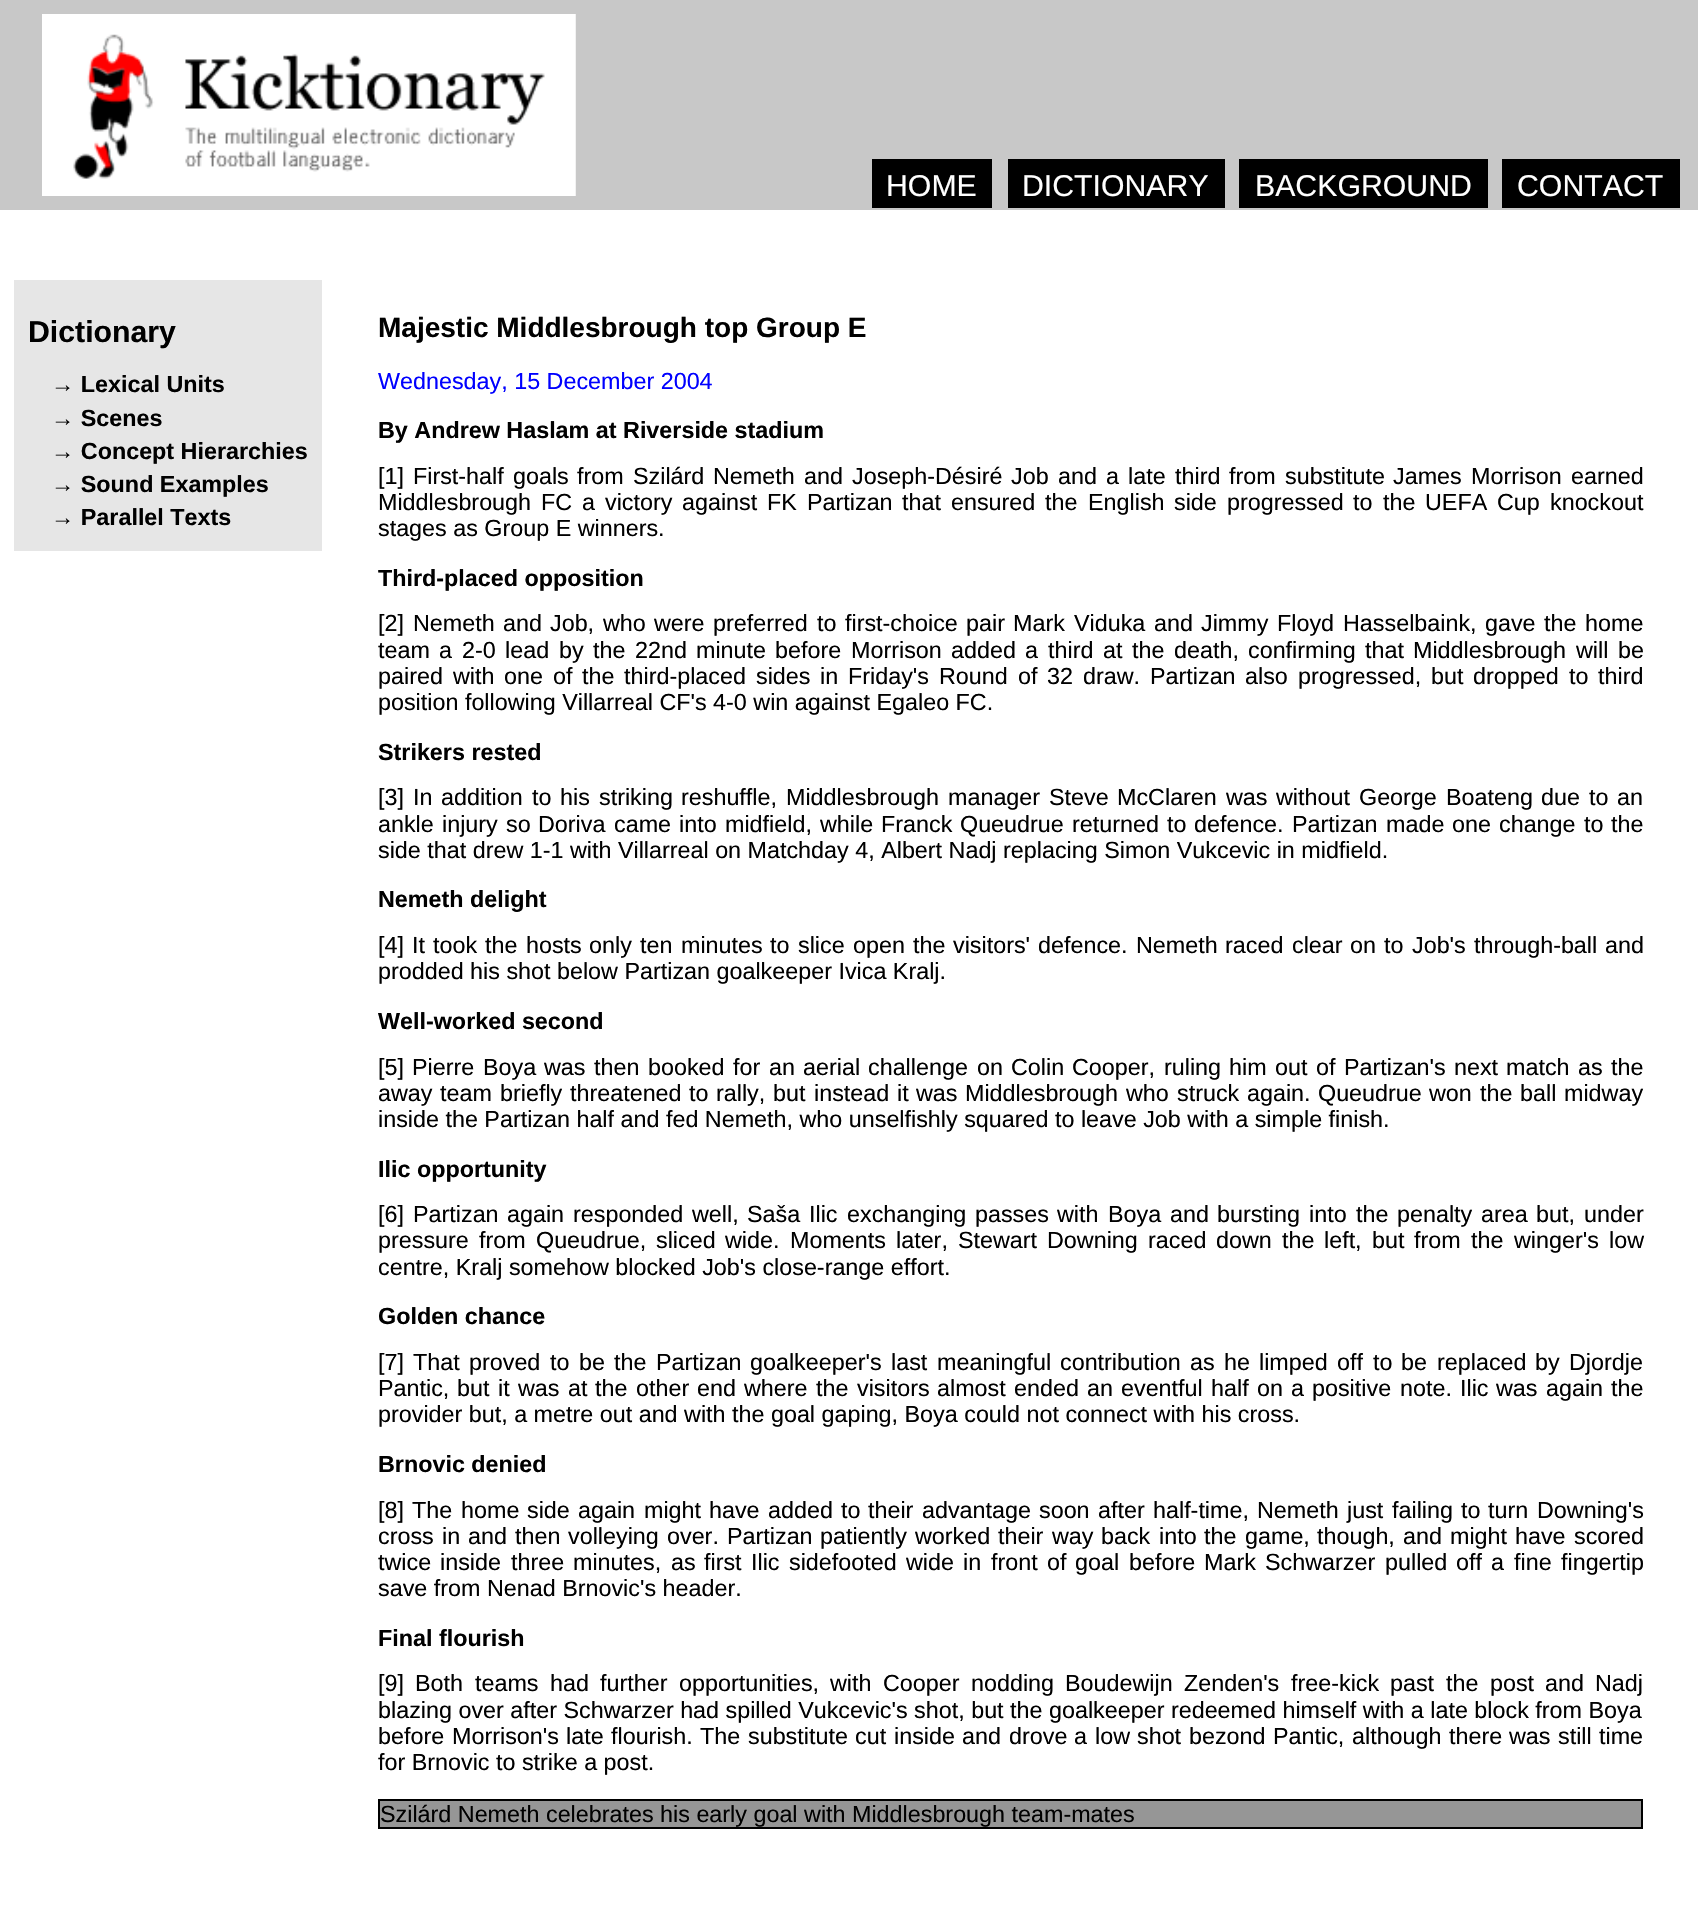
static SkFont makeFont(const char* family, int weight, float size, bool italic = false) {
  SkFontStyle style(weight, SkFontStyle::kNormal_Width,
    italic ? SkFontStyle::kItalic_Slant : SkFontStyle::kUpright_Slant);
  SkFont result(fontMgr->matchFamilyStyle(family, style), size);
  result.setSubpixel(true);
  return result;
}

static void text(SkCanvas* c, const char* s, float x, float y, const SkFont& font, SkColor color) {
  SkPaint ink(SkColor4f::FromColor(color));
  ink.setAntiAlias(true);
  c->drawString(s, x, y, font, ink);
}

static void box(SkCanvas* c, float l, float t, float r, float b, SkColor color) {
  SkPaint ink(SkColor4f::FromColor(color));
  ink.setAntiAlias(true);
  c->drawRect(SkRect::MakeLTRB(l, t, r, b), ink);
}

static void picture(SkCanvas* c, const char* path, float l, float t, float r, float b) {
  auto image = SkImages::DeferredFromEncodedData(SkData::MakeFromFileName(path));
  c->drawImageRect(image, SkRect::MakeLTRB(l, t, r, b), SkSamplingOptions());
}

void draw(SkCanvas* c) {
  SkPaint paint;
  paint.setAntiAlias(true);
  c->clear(0xffffffff);
  box(c, 0, 0, 1698, 210, 0xffc8c8c8);
  picture(c, "img_01.png", 42, 14, 576, 196);
  box(c, 872, 159, 992, 208, 0xff000000);
  SkFont face1 = makeFont("Liberation Sans", 400, 30.25f);
  text(c, "HOME", 886, 196, face1, 0xffffffff);
  box(c, 1008, 159, 1225, 208, 0xff000000);
  text(c, "DICTIONARY", 1022, 196, face1, 0xffffffff);
  box(c, 1239, 159, 1488, 208, 0xff000000);
  text(c, "BACKGROUND", 1255, 196, face1, 0xffffffff);
  box(c, 1502, 159, 1680, 208, 0xff000000);
  text(c, "CONTACT", 1517, 196, face1, 0xffffffff);
  box(c, 14, 280, 322, 551, 0xffe6e6e6);
  SkFont face2 = makeFont("Liberation Sans", 700, 30.25f);
  text(c, "Dictionary", 28, 342, face2, 0xff000000);
  SkFont face3 = makeFont("Liberation Sans", 700, 23.33f);
  text(c, "→ Lexical Units", 51, 392, face3, 0xff000000);
  text(c, "→ Scenes", 51, 426, face3, 0xff000000);
  text(c, "→ Concept Hierarchies", 51, 459, face3, 0xff000000);
  text(c, "→ Sound Examples", 51, 492, face3, 0xff000000);
  text(c, "→ Parallel Texts", 51, 525, face3, 0xff000000);
  SkFont face4 = makeFont("Liberation Sans", 700, 28);
  text(c, "Majestic Middlesbrough top Group E", 378, 337, face4, 0xff000000);
  SkFont face5 = makeFont("Liberation Sans", 400, 23.33f);
  text(c, "Wednesday, 15 December 2004", 378, 389, face5, 0xff0000ff);
  text(c, "By Andrew Haslam at Riverside stadium", 378, 438, face3, 0xff000000);
  text(c, "[1]", 378, 484, face5, 0xff000000);
  text(c, "First-half", 413, 484, face5, 0xff000000);
  text(c, "goals", 513, 484, face5, 0xff000000);
  text(c, "from", 577, 484, face5, 0xff000000);
  text(c, "Szilárd", 633, 484, face5, 0xff000000);
  text(c, "Nemeth", 713, 484, face5, 0xff000000);
  text(c, "and", 804, 484, face5, 0xff000000);
  text(c, "Joseph-Désiré", 852, 484, face5, 0xff000000);
  text(c, "Job", 1011, 484, face5, 0xff000000);
  text(c, "and", 1058, 484, face5, 0xff000000);
  text(c, "a", 1106, 484, face5, 0xff000000);
  text(c, "late", 1128, 484, face5, 0xff000000);
  text(c, "third", 1175, 484, face5, 0xff000000);
  text(c, "from", 1229, 484, face5, 0xff000000);
  text(c, "substitute", 1285, 484, face5, 0xff000000);
  text(c, "James", 1393, 484, face5, 0xff000000);
  text(c, "Morrison", 1471, 484, face5, 0xff000000);
  text(c, "earned", 1571, 484, face5, 0xff000000);
  text(c, "Middlesbrough", 378, 510, face5, 0xff000000);
  text(c, "FC", 541, 510, face5, 0xff000000);
  text(c, "a", 582, 510, face5, 0xff000000);
  text(c, "victory", 605, 510, face5, 0xff000000);
  text(c, "against", 682, 510, face5, 0xff000000);
  text(c, "FK", 767, 510, face5, 0xff000000);
  text(c, "Partizan", 807, 510, face5, 0xff000000);
  text(c, "that", 902, 510, face5, 0xff000000);
  text(c, "ensured", 951, 510, face5, 0xff000000);
  text(c, "the", 1045, 510, face5, 0xff000000);
  text(c, "English", 1088, 510, face5, 0xff000000);
  text(c, "side", 1174, 510, face5, 0xff000000);
  text(c, "progressed", 1227, 510, face5, 0xff000000);
  text(c, "to", 1353, 510, face5, 0xff000000);
  text(c, "the", 1383, 510, face5, 0xff000000);
  text(c, "UEFA", 1425, 510, face5, 0xff000000);
  text(c, "Cup", 1497, 510, face5, 0xff000000);
  text(c, "knockout", 1550, 510, face5, 0xff000000);
  text(c, "stages as Group E winners.", 378, 536, face5, 0xff000000);
  text(c, "Third-placed opposition", 378, 586, face3, 0xff000000);
  text(c, "[2]", 378, 631, face5, 0xff000000);
  text(c, "Nemeth", 413, 631, face5, 0xff000000);
  text(c, "and", 503, 631, face5, 0xff000000);
  text(c, "Job,", 550, 631, face5, 0xff000000);
  text(c, "who", 603, 631, face5, 0xff000000);
  text(c, "were", 654, 631, face5, 0xff000000);
  text(c, "preferred", 713, 631, face5, 0xff000000);
  text(c, "to", 817, 631, face5, 0xff000000);
  text(c, "first-choice", 845, 631, face5, 0xff000000);
  text(c, "pair", 966, 631, face5, 0xff000000);
  text(c, "Mark", 1013, 631, face5, 0xff000000);
  text(c, "Viduka", 1074, 631, face5, 0xff000000);
  text(c, "and", 1154, 631, face5, 0xff000000);
  text(c, "Jimmy", 1201, 631, face5, 0xff000000);
  text(c, "Floyd", 1277, 631, face5, 0xff000000);
  text(c, "Hasselbaink,", 1343, 631, face5, 0xff000000);
  text(c, "gave", 1485, 631, face5, 0xff000000);
  text(c, "the", 1544, 631, face5, 0xff000000);
  text(c, "home", 1585, 631, face5, 0xff000000);
  text(c, "team", 378, 658, face5, 0xff000000);
  text(c, "a", 439, 658, face5, 0xff000000);
  text(c, "2-0", 462, 658, face5, 0xff000000);
  text(c, "lead", 505, 658, face5, 0xff000000);
  text(c, "by", 559, 658, face5, 0xff000000);
  text(c, "the", 593, 658, face5, 0xff000000);
  text(c, "22nd", 635, 658, face5, 0xff000000);
  text(c, "minute", 696, 658, face5, 0xff000000);
  text(c, "before", 775, 658, face5, 0xff000000);
  text(c, "Morrison", 851, 658, face5, 0xff000000);
  text(c, "added", 951, 658, face5, 0xff000000);
  text(c, "a", 1025, 658, face5, 0xff000000);
  text(c, "third", 1048, 658, face5, 0xff000000);
  text(c, "at", 1103, 658, face5, 0xff000000);
  text(c, "the", 1132, 658, face5, 0xff000000);
  text(c, "death,", 1174, 658, face5, 0xff000000);
  text(c, "confirming", 1248, 658, face5, 0xff000000);
  text(c, "that", 1365, 658, face5, 0xff000000);
  text(c, "Middlesbrough", 1413, 658, face5, 0xff000000);
  text(c, "will", 1576, 658, face5, 0xff000000);
  text(c, "be", 1618, 658, face5, 0xff000000);
  text(c, "paired", 378, 684, face5, 0xff000000);
  text(c, "with", 453, 684, face5, 0xff000000);
  text(c, "one", 504, 684, face5, 0xff000000);
  text(c, "of", 553, 684, face5, 0xff000000);
  text(c, "the", 582, 684, face5, 0xff000000);
  text(c, "third-placed", 624, 684, face5, 0xff000000);
  text(c, "sides", 756, 684, face5, 0xff000000);
  text(c, "in", 820, 684, face5, 0xff000000);
  text(c, "Friday's", 848, 684, face5, 0xff000000);
  text(c, "Round", 939, 684, face5, 0xff000000);
  text(c, "of", 1018, 684, face5, 0xff000000);
  text(c, "32", 1047, 684, face5, 0xff000000);
  text(c, "draw.", 1083, 684, face5, 0xff000000);
  text(c, "Partizan", 1150, 684, face5, 0xff000000);
  text(c, "also", 1245, 684, face5, 0xff000000);
  text(c, "progressed,", 1298, 684, face5, 0xff000000);
  text(c, "but", 1431, 684, face5, 0xff000000);
  text(c, "dropped", 1473, 684, face5, 0xff000000);
  text(c, "to", 1569, 684, face5, 0xff000000);
  text(c, "third", 1598, 684, face5, 0xff000000);
  text(c, "position following Villarreal CF's 4-0 win against Egaleo FC.", 378, 710, face5, 0xff000000);
  text(c, "Strikers rested", 378, 760, face3, 0xff000000);
  text(c, "[3]", 378, 805, face5, 0xff000000);
  text(c, "In", 413, 805, face5, 0xff000000);
  text(c, "addition", 441, 805, face5, 0xff000000);
  text(c, "to", 532, 805, face5, 0xff000000);
  text(c, "his", 560, 805, face5, 0xff000000);
  text(c, "striking", 599, 805, face5, 0xff000000);
  text(c, "reshuffle,", 681, 805, face5, 0xff000000);
  text(c, "Middlesbrough", 786, 805, face5, 0xff000000);
  text(c, "manager", 948, 805, face5, 0xff000000);
  text(c, "Steve", 1049, 805, face5, 0xff000000);
  text(c, "McClaren", 1117, 805, face5, 0xff000000);
  text(c, "was", 1226, 805, face5, 0xff000000);
  text(c, "without", 1276, 805, face5, 0xff000000);
  text(c, "George", 1359, 805, face5, 0xff000000);
  text(c, "Boateng", 1446, 805, face5, 0xff000000);
  text(c, "due", 1541, 805, face5, 0xff000000);
  text(c, "to", 1589, 805, face5, 0xff000000);
  text(c, "an", 1617, 805, face5, 0xff000000);
  text(c, "ankle", 378, 832, face5, 0xff000000);
  text(c, "injury", 442, 832, face5, 0xff000000);
  text(c, "so", 506, 832, face5, 0xff000000);
  text(c, "Doriva", 538, 832, face5, 0xff000000);
  text(c, "came", 614, 832, face5, 0xff000000);
  text(c, "into", 679, 832, face5, 0xff000000);
  text(c, "midfield,", 725, 832, face5, 0xff000000);
  text(c, "while", 820, 832, face5, 0xff000000);
  text(c, "Franck", 881, 832, face5, 0xff000000);
  text(c, "Queudrue", 960, 832, face5, 0xff000000);
  text(c, "returned", 1072, 832, face5, 0xff000000);
  text(c, "to", 1167, 832, face5, 0xff000000);
  text(c, "defence.", 1194, 832, face5, 0xff000000);
  text(c, "Partizan", 1292, 832, face5, 0xff000000);
  text(c, "made", 1386, 832, face5, 0xff000000);
  text(c, "one", 1452, 832, face5, 0xff000000);
  text(c, "change", 1499, 832, face5, 0xff000000);
  text(c, "to", 1584, 832, face5, 0xff000000);
  text(c, "the", 1611, 832, face5, 0xff000000);
  text(c, "side that drew 1-1 with Villarreal on Matchday 4, Albert Nadj replacing Simon Vukcevic in midfield.", 378, 858, face5, 0xff000000);
  text(c, "Nemeth delight", 378, 907, face3, 0xff000000);
  text(c, "[4]", 378, 953, face5, 0xff000000);
  text(c, "It", 412, 953, face5, 0xff000000);
  text(c, "took", 433, 953, face5, 0xff000000);
  text(c, "the", 485, 953, face5, 0xff000000);
  text(c, "hosts", 526, 953, face5, 0xff000000);
  text(c, "only", 589, 953, face5, 0xff000000);
  text(c, "ten", 640, 953, face5, 0xff000000);
  text(c, "minutes", 681, 953, face5, 0xff000000);
  text(c, "to", 770, 953, face5, 0xff000000);
  text(c, "slice", 798, 953, face5, 0xff000000);
  text(c, "open", 853, 953, face5, 0xff000000);
  text(c, "the", 913, 953, face5, 0xff000000);
  text(c, "visitors'", 953, 953, face5, 0xff000000);
  text(c, "defence.", 1038, 953, face5, 0xff000000);
  text(c, "Nemeth", 1136, 953, face5, 0xff000000);
  text(c, "raced", 1225, 953, face5, 0xff000000);
  text(c, "clear", 1292, 953, face5, 0xff000000);
  text(c, "on", 1350, 953, face5, 0xff000000);
  text(c, "to", 1384, 953, face5, 0xff000000);
  text(c, "Job's", 1412, 953, face5, 0xff000000);
  text(c, "through-ball", 1474, 953, face5, 0xff000000);
  text(c, "and", 1605, 953, face5, 0xff000000);
  text(c, "prodded his shot below Partizan goalkeeper Ivica Kralj.", 378, 979, face5, 0xff000000);
  text(c, "Well-worked second", 378, 1029, face3, 0xff000000);
  text(c, "[5]", 378, 1075, face5, 0xff000000);
  text(c, "Pierre", 412, 1075, face5, 0xff000000);
  text(c, "Boya", 483, 1075, face5, 0xff000000);
  text(c, "was", 544, 1075, face5, 0xff000000);
  text(c, "then", 594, 1075, face5, 0xff000000);
  text(c, "booked", 648, 1075, face5, 0xff000000);
  text(c, "for", 733, 1075, face5, 0xff000000);
  text(c, "an", 769, 1075, face5, 0xff000000);
  text(c, "aerial", 803, 1075, face5, 0xff000000);
  text(c, "challenge", 868, 1075, face5, 0xff000000);
  text(c, "on", 977, 1075, face5, 0xff000000);
  text(c, "Colin", 1011, 1075, face5, 0xff000000);
  text(c, "Cooper,", 1072, 1075, face5, 0xff000000);
  text(c, "ruling", 1164, 1075, face5, 0xff000000);
  text(c, "him", 1229, 1075, face5, 0xff000000);
  text(c, "out", 1275, 1075, face5, 0xff000000);
  text(c, "of", 1316, 1075, face5, 0xff000000);
  text(c, "Partizan's", 1344, 1075, face5, 0xff000000);
  text(c, "next", 1454, 1075, face5, 0xff000000);
  text(c, "match", 1506, 1075, face5, 0xff000000);
  text(c, "as", 1578, 1075, face5, 0xff000000);
  text(c, "the", 1611, 1075, face5, 0xff000000);
  text(c, "away", 378, 1101, face5, 0xff000000);
  text(c, "team", 440, 1101, face5, 0xff000000);
  text(c, "briefly", 500, 1101, face5, 0xff000000);
  text(c, "threatened", 570, 1101, face5, 0xff000000);
  text(c, "to", 689, 1101, face5, 0xff000000);
  text(c, "rally,", 716, 1101, face5, 0xff000000);
  text(c, "but", 773, 1101, face5, 0xff000000);
  text(c, "instead", 814, 1101, face5, 0xff000000);
  text(c, "it", 897, 1101, face5, 0xff000000);
  text(c, "was", 916, 1101, face5, 0xff000000);
  text(c, "Middlesbrough", 965, 1101, face5, 0xff000000);
  text(c, "who", 1126, 1101, face5, 0xff000000);
  text(c, "struck", 1177, 1101, face5, 0xff000000);
  text(c, "again.", 1247, 1101, face5, 0xff000000);
  text(c, "Queudrue", 1318, 1101, face5, 0xff000000);
  text(c, "won", 1429, 1101, face5, 0xff000000);
  text(c, "the", 1480, 1101, face5, 0xff000000);
  text(c, "ball", 1520, 1101, face5, 0xff000000);
  text(c, "midway", 1564, 1101, face5, 0xff000000);
  text(c, "inside the Partizan half and fed Nemeth, who unselfishly squared to leave Job with a simple finish.", 378, 1127, face5, 0xff000000);
  text(c, "Ilic opportunity", 378, 1177, face3, 0xff000000);
  text(c, "[6]", 378, 1222, face5, 0xff000000);
  text(c, "Partizan", 413, 1222, face5, 0xff000000);
  text(c, "again", 507, 1222, face5, 0xff000000);
  text(c, "responded", 573, 1222, face5, 0xff000000);
  text(c, "well,", 692, 1222, face5, 0xff000000);
  text(c, "Saša", 747, 1222, face5, 0xff000000);
  text(c, "Ilic", 809, 1222, face5, 0xff000000);
  text(c, "exchanging", 847, 1222, face5, 0xff000000);
  text(c, "passes", 975, 1222, face5, 0xff000000);
  text(c, "with", 1057, 1222, face5, 0xff000000);
  text(c, "Boya", 1108, 1222, face5, 0xff000000);
  text(c, "and", 1170, 1222, face5, 0xff000000);
  text(c, "bursting", 1217, 1222, face5, 0xff000000);
  text(c, "into", 1309, 1222, face5, 0xff000000);
  text(c, "the", 1356, 1222, face5, 0xff000000);
  text(c, "penalty", 1397, 1222, face5, 0xff000000);
  text(c, "area", 1481, 1222, face5, 0xff000000);
  text(c, "but,", 1536, 1222, face5, 0xff000000);
  text(c, "under", 1584, 1222, face5, 0xff000000);
  text(c, "pressure", 378, 1248, face5, 0xff000000);
  text(c, "from", 479, 1248, face5, 0xff000000);
  text(c, "Queudrue,", 536, 1248, face5, 0xff000000);
  text(c, "sliced", 656, 1248, face5, 0xff000000);
  text(c, "wide.", 725, 1248, face5, 0xff000000);
  text(c, "Moments", 790, 1248, face5, 0xff000000);
  text(c, "later,", 896, 1248, face5, 0xff000000);
  text(c, "Stewart", 958, 1248, face5, 0xff000000);
  text(c, "Downing", 1047, 1248, face5, 0xff000000);
  text(c, "raced", 1148, 1248, face5, 0xff000000);
  text(c, "down", 1216, 1248, face5, 0xff000000);
  text(c, "the", 1282, 1248, face5, 0xff000000);
  text(c, "left,", 1324, 1248, face5, 0xff000000);
  text(c, "but", 1372, 1248, face5, 0xff000000);
  text(c, "from", 1414, 1248, face5, 0xff000000);
  text(c, "the", 1471, 1248, face5, 0xff000000);
  text(c, "winger's", 1514, 1248, face5, 0xff000000);
  text(c, "low", 1609, 1248, face5, 0xff000000);
  text(c, "centre, Kralj somehow blocked Job's close-range effort.", 378, 1275, face5, 0xff000000);
  text(c, "Golden chance", 378, 1324, face3, 0xff000000);
  text(c, "[7]", 378, 1370, face5, 0xff000000);
  text(c, "That", 413, 1370, face5, 0xff000000);
  text(c, "proved", 469, 1370, face5, 0xff000000);
  text(c, "to", 550, 1370, face5, 0xff000000);
  text(c, "be", 579, 1370, face5, 0xff000000);
  text(c, "the", 614, 1370, face5, 0xff000000);
  text(c, "Partizan", 656, 1370, face5, 0xff000000);
  text(c, "goalkeeper's", 750, 1370, face5, 0xff000000);
  text(c, "last", 891, 1370, face5, 0xff000000);
  text(c, "meaningful", 937, 1370, face5, 0xff000000);
  text(c, "contribution", 1060, 1370, face5, 0xff000000);
  text(c, "as", 1190, 1370, face5, 0xff000000);
  text(c, "he", 1224, 1370, face5, 0xff000000);
  text(c, "limped", 1259, 1370, face5, 0xff000000);
  text(c, "off", 1337, 1370, face5, 0xff000000);
  text(c, "to", 1373, 1370, face5, 0xff000000);
  text(c, "be", 1401, 1370, face5, 0xff000000);
  text(c, "replaced", 1437, 1370, face5, 0xff000000);
  text(c, "by", 1535, 1370, face5, 0xff000000);
  text(c, "Djordje", 1569, 1370, face5, 0xff000000);
  text(c, "Pantic,", 378, 1396, face5, 0xff000000);
  text(c, "but", 457, 1396, face5, 0xff000000);
  text(c, "it", 498, 1396, face5, 0xff000000);
  text(c, "was", 518, 1396, face5, 0xff000000);
  text(c, "at", 568, 1396, face5, 0xff000000);
  text(c, "the", 595, 1396, face5, 0xff000000);
  text(c, "other", 636, 1396, face5, 0xff000000);
  text(c, "end", 697, 1396, face5, 0xff000000);
  text(c, "where", 744, 1396, face5, 0xff000000);
  text(c, "the", 816, 1396, face5, 0xff000000);
  text(c, "visitors", 857, 1396, face5, 0xff000000);
  text(c, "almost", 937, 1396, face5, 0xff000000);
  text(c, "ended", 1014, 1396, face5, 0xff000000);
  text(c, "an", 1087, 1396, face5, 0xff000000);
  text(c, "eventful", 1121, 1396, face5, 0xff000000);
  text(c, "half", 1211, 1396, face5, 0xff000000);
  text(c, "on", 1257, 1396, face5, 0xff000000);
  text(c, "a", 1291, 1396, face5, 0xff000000);
  text(c, "positive", 1312, 1396, face5, 0xff000000);
  text(c, "note.", 1400, 1396, face5, 0xff000000);
  text(c, "Ilic", 1460, 1396, face5, 0xff000000);
  text(c, "was", 1496, 1396, face5, 0xff000000);
  text(c, "again", 1546, 1396, face5, 0xff000000);
  text(c, "the", 1611, 1396, face5, 0xff000000);
  text(c, "provider but, a metre out and with the goal gaping, Boya could not connect with his cross.", 378, 1422, face5, 0xff000000);
  text(c, "Brnovic denied", 378, 1472, face3, 0xff000000);
  text(c, "[8]", 378, 1518, face5, 0xff000000);
  text(c, "The", 412, 1518, face5, 0xff000000);
  text(c, "home", 461, 1518, face5, 0xff000000);
  text(c, "side", 527, 1518, face5, 0xff000000);
  text(c, "again", 578, 1518, face5, 0xff000000);
  text(c, "might", 644, 1518, face5, 0xff000000);
  text(c, "have", 709, 1518, face5, 0xff000000);
  text(c, "added", 768, 1518, face5, 0xff000000);
  text(c, "to", 841, 1518, face5, 0xff000000);
  text(c, "their", 868, 1518, face5, 0xff000000);
  text(c, "advantage", 922, 1518, face5, 0xff000000);
  text(c, "soon", 1039, 1518, face5, 0xff000000);
  text(c, "after", 1098, 1518, face5, 0xff000000);
  text(c, "half-time,", 1153, 1518, face5, 0xff000000);
  text(c, "Nemeth", 1257, 1518, face5, 0xff000000);
  text(c, "just", 1347, 1518, face5, 0xff000000);
  text(c, "failing", 1392, 1518, face5, 0xff000000);
  text(c, "to", 1461, 1518, face5, 0xff000000);
  text(c, "turn", 1488, 1518, face5, 0xff000000);
  text(c, "Downing's", 1537, 1518, face5, 0xff000000);
  text(c, "cross", 378, 1544, face5, 0xff000000);
  text(c, "in", 442, 1544, face5, 0xff000000);
  text(c, "and", 468, 1544, face5, 0xff000000);
  text(c, "then", 515, 1544, face5, 0xff000000);
  text(c, "volleying", 568, 1544, face5, 0xff000000);
  text(c, "over.", 667, 1544, face5, 0xff000000);
  text(c, "Partizan", 727, 1544, face5, 0xff000000);
  text(c, "patiently", 820, 1544, face5, 0xff000000);
  text(c, "worked", 915, 1544, face5, 0xff000000);
  text(c, "their", 998, 1544, face5, 0xff000000);
  text(c, "way", 1052, 1544, face5, 0xff000000);
  text(c, "back", 1101, 1544, face5, 0xff000000);
  text(c, "into", 1159, 1544, face5, 0xff000000);
  text(c, "the", 1204, 1544, face5, 0xff000000);
  text(c, "game,", 1245, 1544, face5, 0xff000000);
  text(c, "though,", 1317, 1544, face5, 0xff000000);
  text(c, "and", 1403, 1544, face5, 0xff000000);
  text(c, "might", 1450, 1544, face5, 0xff000000);
  text(c, "have", 1515, 1544, face5, 0xff000000);
  text(c, "scored", 1574, 1544, face5, 0xff000000);
  text(c, "twice", 378, 1570, face5, 0xff000000);
  text(c, "inside", 440, 1570, face5, 0xff000000);
  text(c, "three", 511, 1570, face5, 0xff000000);
  text(c, "minutes,", 573, 1570, face5, 0xff000000);
  text(c, "as", 671, 1570, face5, 0xff000000);
  text(c, "first", 704, 1570, face5, 0xff000000);
  text(c, "Ilic", 751, 1570, face5, 0xff000000);
  text(c, "sidefooted", 789, 1570, face5, 0xff000000);
  text(c, "wide", 906, 1570, face5, 0xff000000);
  text(c, "in", 963, 1570, face5, 0xff000000);
  text(c, "front", 991, 1570, face5, 0xff000000);
  text(c, "of", 1047, 1570, face5, 0xff000000);
  text(c, "goal", 1075, 1570, face5, 0xff000000);
  text(c, "before", 1129, 1570, face5, 0xff000000);
  text(c, "Mark", 1204, 1570, face5, 0xff000000);
  text(c, "Schwarzer", 1265, 1570, face5, 0xff000000);
  text(c, "pulled", 1385, 1570, face5, 0xff000000);
  text(c, "off", 1456, 1570, face5, 0xff000000);
  text(c, "a", 1491, 1570, face5, 0xff000000);
  text(c, "fine", 1514, 1570, face5, 0xff000000);
  text(c, "fingertip", 1561, 1570, face5, 0xff000000);
  text(c, "save from Nenad Brnovic's header.", 378, 1596, face5, 0xff000000);
  text(c, "Final flourish", 378, 1646, face3, 0xff000000);
  text(c, "[9]", 378, 1691, face5, 0xff000000);
  text(c, "Both", 415, 1691, face5, 0xff000000);
  text(c, "teams", 475, 1691, face5, 0xff000000);
  text(c, "had", 550, 1691, face5, 0xff000000);
  text(c, "further", 600, 1691, face5, 0xff000000);
  text(c, "opportunities,", 679, 1691, face5, 0xff000000);
  text(c, "with", 830, 1691, face5, 0xff000000);
  text(c, "Cooper", 883, 1691, face5, 0xff000000);
  text(c, "nodding", 971, 1691, face5, 0xff000000);
  text(c, "Boudewijn", 1065, 1691, face5, 0xff000000);
  text(c, "Zenden's", 1184, 1691, face5, 0xff000000);
  text(c, "free-kick", 1291, 1691, face5, 0xff000000);
  text(c, "past", 1390, 1691, face5, 0xff000000);
  text(c, "the", 1446, 1691, face5, 0xff000000);
  text(c, "post", 1490, 1691, face5, 0xff000000);
  text(c, "and", 1545, 1691, face5, 0xff000000);
  text(c, "Nadj", 1595, 1691, face5, 0xff000000);
  text(c, "blazing over after Schwarzer had spilled Vukcevic's shot, but the goalkeeper redeemed himself with a late block from Boya", 378, 1718, face5, 0xff000000);
  text(c, "before", 378, 1744, face5, 0xff000000);
  text(c, "Morrison's", 452, 1744, face5, 0xff000000);
  text(c, "late", 566, 1744, face5, 0xff000000);
  text(c, "flourish.", 611, 1744, face5, 0xff000000);
  text(c, "The", 700, 1744, face5, 0xff000000);
  text(c, "substitute", 748, 1744, face5, 0xff000000);
  text(c, "cut", 855, 1744, face5, 0xff000000);
  text(c, "inside", 894, 1744, face5, 0xff000000);
  text(c, "and", 962, 1744, face5, 0xff000000);
  text(c, "drove", 1009, 1744, face5, 0xff000000);
  text(c, "a", 1074, 1744, face5, 0xff000000);
  text(c, "low", 1095, 1744, face5, 0xff000000);
  text(c, "shot", 1137, 1744, face5, 0xff000000);
  text(c, "bezond", 1189, 1744, face5, 0xff000000);
  text(c, "Pantic,", 1273, 1744, face5, 0xff000000);
  text(c, "although", 1352, 1744, face5, 0xff000000);
  text(c, "there", 1449, 1744, face5, 0xff000000);
  text(c, "was", 1509, 1744, face5, 0xff000000);
  text(c, "still", 1558, 1744, face5, 0xff000000);
  text(c, "time", 1599, 1744, face5, 0xff000000);
  text(c, "for Brnovic to strike a post.", 378, 1770, face5, 0xff000000);
  paint.setColor(0xff969696);
  c->drawRect(SkRect::MakeLTRB(379, 1800, 1642, 1828), paint);
  paint.setStyle(SkPaint::kStroke_Style);
  paint.setStrokeWidth(2);
  paint.setColor(0xff000000);
  c->drawRect(SkRect::MakeLTRB(379, 1800, 1642, 1828), paint);
  text(c, "Szilárd Nemeth celebrates his early goal with Middlesbrough team-mates", 380, 1822, face5, 0xff000000);
}
